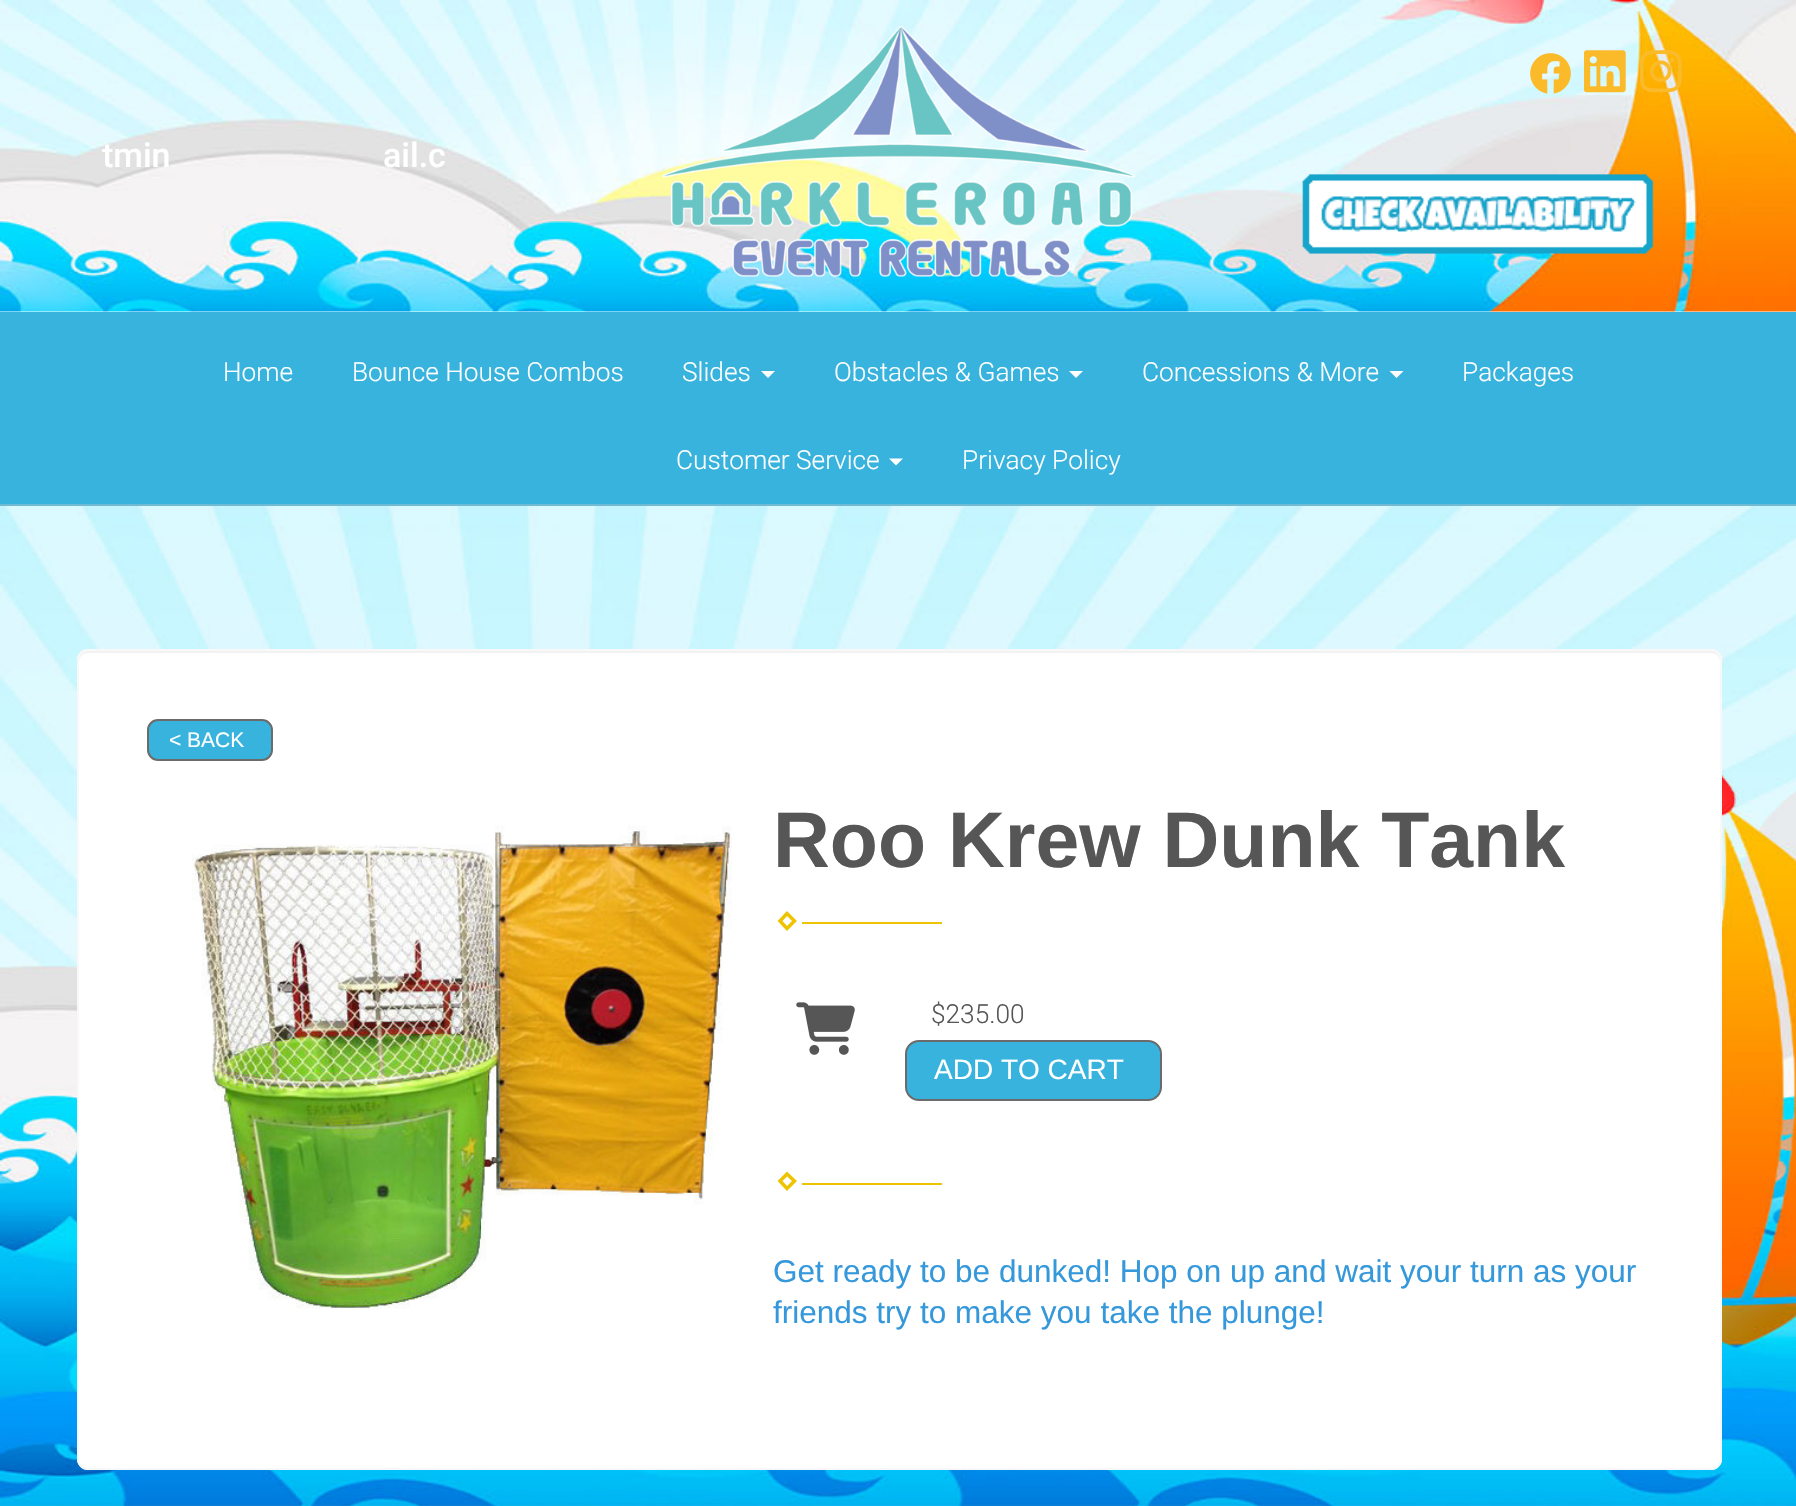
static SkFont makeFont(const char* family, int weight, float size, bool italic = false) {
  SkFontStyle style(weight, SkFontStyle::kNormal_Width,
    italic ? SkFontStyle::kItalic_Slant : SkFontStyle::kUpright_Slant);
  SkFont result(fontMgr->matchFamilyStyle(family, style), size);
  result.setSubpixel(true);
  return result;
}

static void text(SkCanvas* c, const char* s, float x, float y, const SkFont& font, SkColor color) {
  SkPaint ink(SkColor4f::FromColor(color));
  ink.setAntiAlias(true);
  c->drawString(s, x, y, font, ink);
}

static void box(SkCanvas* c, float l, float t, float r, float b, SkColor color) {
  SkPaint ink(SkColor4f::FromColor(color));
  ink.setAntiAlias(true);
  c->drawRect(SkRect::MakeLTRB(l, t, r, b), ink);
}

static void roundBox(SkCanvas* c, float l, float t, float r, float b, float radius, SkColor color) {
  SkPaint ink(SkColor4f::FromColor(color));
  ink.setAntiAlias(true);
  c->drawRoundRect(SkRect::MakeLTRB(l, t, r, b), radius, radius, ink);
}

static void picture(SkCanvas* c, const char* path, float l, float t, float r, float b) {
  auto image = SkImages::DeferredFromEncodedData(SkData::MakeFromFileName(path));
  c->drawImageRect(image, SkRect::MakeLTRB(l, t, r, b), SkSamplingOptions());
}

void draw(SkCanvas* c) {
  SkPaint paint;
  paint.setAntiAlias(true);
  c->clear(0xffffffff);
  picture(c, "img_01.png", 0, 506, 1796, 1506);
  picture(c, "img_02.png", 0, 0, 1796, 312);
  SkFont face1 = makeFont("Roboto", 500, 34);
  text(c, "tmin", 102, 167, face1, 0xffffffff);
  text(c, "ail.c", 383, 167, face1, 0xffffffff);
  picture(c, "img_03.png", 662, 26, 1136, 277);
  picture(c, "img_04.png", 1530, 53, 1571, 94);
  picture(c, "img_05.png", 1584, 50, 1626, 93);
  picture(c, "img_06.png", 1640, 50, 1682, 93);
  picture(c, "img_07.png", 1302, 174, 1654, 254);
  box(c, 0, 312, 1796, 504, 0xff38b3dd);
  box(c, 0, 504, 1796, 506, 0xff70bad3);
  SkFont face2 = makeFont("Roboto", 300, 26.25f);
  text(c, "Home", 223, 381, face2, 0xffffffff);
  text(c, "Bounce House Combos", 352, 381, face2, 0xffffffff);
  text(c, "Slides", 682, 381, face2, 0xffffffff);
  paint.setColor(0xffffffff);
  c->drawPath(SkPathBuilder().moveTo(761, 371).lineTo(775, 371).lineTo(768, 378).close().detach(), paint);
  text(c, "Obstacles & Games", 834, 381, face2, 0xffffffff);
  c->drawPath(SkPathBuilder().moveTo(1069, 371).lineTo(1083, 371).lineTo(1076, 378).close().detach(), paint);
  text(c, "Concessions & More", 1142, 381, face2, 0xffffffff);
  c->drawPath(SkPathBuilder().moveTo(1389.5f, 371).lineTo(1403.5f, 371).lineTo(1396.5f, 378).close().detach(), paint);
  text(c, "Packages", 1462, 381, face2, 0xffffffff);
  text(c, "Customer Service", 676, 469, face2, 0xffffffff);
  c->drawPath(SkPathBuilder().moveTo(889, 458.5f).lineTo(903, 458.5f).lineTo(896, 465.5f).close().detach(), paint);
  text(c, "Privacy Policy", 962, 469, face2, 0xffffffff);
  roundBox(c, 77, 649, 1722, 1470, 11, 0xffffffff);
  paint.setColor(0xfff2f2f2);
  c->drawPath(SkPathBuilder().moveTo(88, 653).lineTo(1712, 653).cubicTo(1716, 653, 1720, 657, 1720, 662).lineTo(1720, 660).cubicTo(1720, 655, 1716, 651, 1711, 651).lineTo(88, 651).cubicTo(83, 651, 79, 655, 79, 660).lineTo(79, 662).cubicTo(79, 657, 83, 653, 88, 653).close().detach(), paint);
  paint.setStyle(SkPaint::kStroke_Style);
  paint.setStrokeWidth(2);
  paint.setColor(0xfff9f8f8);
  c->drawRoundRect(SkRect::MakeLTRB(78, 650, 1721, 1469), 10, 10, paint);
  paint.setStyle(SkPaint::kFill_Style);
  paint.setColor(0xff38b3dd);
  c->drawRoundRect(SkRect::MakeLTRB(148, 720, 272, 760), 10, 10, paint);
  paint.setStyle(SkPaint::kStroke_Style);
  paint.setColor(0xff6b6b6b);
  c->drawRoundRect(SkRect::MakeLTRB(148, 720, 272, 760), 10, 10, paint);
  SkFont face3 = makeFont("Liberation Sans", 400, 21);
  text(c, "< BACK", 169, 747, face3, 0xffffffff);
  picture(c, "img_08.png", 192, 825, 732, 1309);
  SkFont face4 = makeFont("Liberation Sans", 700, 78.75f);
  text(c, "Roo Krew Dunk Tank", 773, 867, face4, 0xff565656);
  paint.setStrokeWidth(3.5f);
  paint.setColor(0xffeec400);
  c->drawPath(SkPathBuilder().moveTo(787, 913.5f).lineTo(794.5f, 921).lineTo(787, 928.5f).lineTo(780, 921).close().detach(), paint);
  box(c, 802, 922, 942, 924, 0xffeec400);
  picture(c, "img_09.png", 796, 1002, 855, 1055);
  text(c, "$235.00", 931, 1023, face2, 0xff565656);
  paint.setStyle(SkPaint::kFill_Style);
  paint.setColor(0xff38b3dd);
  c->drawRoundRect(SkRect::MakeLTRB(906, 1041, 1161, 1100), 13, 13, paint);
  paint.setStyle(SkPaint::kStroke_Style);
  paint.setStrokeWidth(2);
  paint.setColor(0xff6b6b6b);
  c->drawRoundRect(SkRect::MakeLTRB(906, 1041, 1161, 1100), 13, 13, paint);
  SkFont face5 = makeFont("Liberation Sans", 400, 28);
  text(c, "ADD TO CART", 934, 1079, face5, 0xffffffff);
  paint.setStrokeWidth(3.5f);
  paint.setColor(0xffeec400);
  c->drawPath(SkPathBuilder().moveTo(787, 1174).lineTo(794.5f, 1181).lineTo(787, 1188.5f).lineTo(780, 1181).close().detach(), paint);
  box(c, 802, 1183, 942, 1185, 0xffeec400);
  SkFont face6 = makeFont("Liberation Sans", 400, 31.5f);
  text(c, "Get ready to be dunked! Hop on up and wait your turn as your", 773, 1282, face6, 0xff3498db);
  text(c, "friends try to make you take the plunge!", 773, 1323, face6, 0xff3498db);
}
